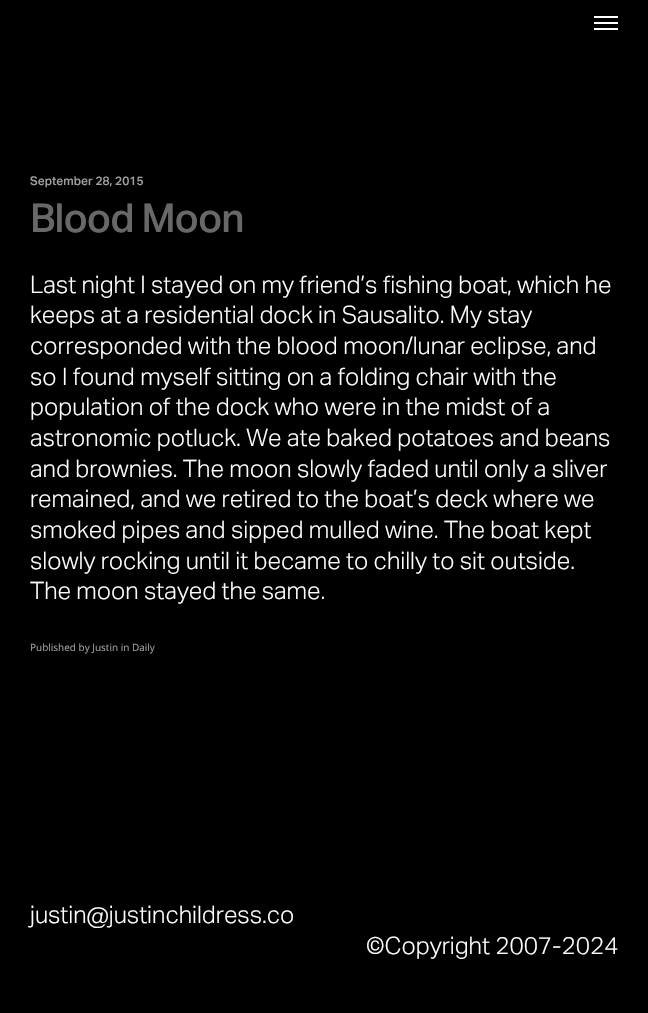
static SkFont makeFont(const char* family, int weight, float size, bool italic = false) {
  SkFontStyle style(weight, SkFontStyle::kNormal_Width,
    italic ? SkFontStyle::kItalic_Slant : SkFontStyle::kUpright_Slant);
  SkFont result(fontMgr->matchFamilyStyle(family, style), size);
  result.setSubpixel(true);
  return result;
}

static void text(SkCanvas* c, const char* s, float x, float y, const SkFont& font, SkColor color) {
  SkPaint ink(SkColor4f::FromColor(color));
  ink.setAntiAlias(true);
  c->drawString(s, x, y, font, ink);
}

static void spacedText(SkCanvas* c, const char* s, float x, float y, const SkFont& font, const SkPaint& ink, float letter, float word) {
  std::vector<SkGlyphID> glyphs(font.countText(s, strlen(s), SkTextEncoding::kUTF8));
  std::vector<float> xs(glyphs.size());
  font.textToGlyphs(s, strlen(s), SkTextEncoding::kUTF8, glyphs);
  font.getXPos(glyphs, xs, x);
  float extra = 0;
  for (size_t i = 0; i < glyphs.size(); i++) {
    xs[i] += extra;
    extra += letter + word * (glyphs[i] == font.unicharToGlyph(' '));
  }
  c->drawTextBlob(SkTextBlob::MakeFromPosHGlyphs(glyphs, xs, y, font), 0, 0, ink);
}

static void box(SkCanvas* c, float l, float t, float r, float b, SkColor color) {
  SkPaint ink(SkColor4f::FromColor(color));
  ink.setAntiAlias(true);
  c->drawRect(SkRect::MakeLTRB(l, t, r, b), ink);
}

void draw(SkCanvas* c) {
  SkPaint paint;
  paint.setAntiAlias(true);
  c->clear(0xff000000);
  box(c, 594, 22, 618, 24, 0xffffffff);
  box(c, 594, 16, 618, 18, 0xffffffff);
  box(c, 594, 28, 618, 30, 0xffffffff);
  SkFont face1 = makeFont("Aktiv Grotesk", 500, 12);
  text(c, "September 28, 2015", 30, 185, face1, 0xffa0a0a0);
  SkFont face2 = makeFont("Aktiv Grotesk", 500, 40);
  paint.setColor(0xff686868);
  spacedText(c, "Blood Moon", 30, 232, face2, paint, -1, 0);
  SkFont face3 = makeFont("Aktiv Grotesk", 300, 24);
  text(c, "Last night I stayed on my friend’s fishing boat, which he", 30, 293, face3, 0xffffffff);
  text(c, "keeps at a residential dock in Sausalito. My stay", 30, 323, face3, 0xffffffff);
  text(c, "corresponded with the blood moon/lunar eclipse, and", 30, 354, face3, 0xffffffff);
  text(c, "so I found myself sitting on a folding chair with the", 30, 385, face3, 0xffffffff);
  text(c, "population of the dock who were in the midst of a", 30, 415, face3, 0xffffffff);
  text(c, "astronomic potluck. We ate baked potatoes and beans", 30, 446, face3, 0xffffffff);
  text(c, "and brownies. The moon slowly faded until only a sliver", 30, 477, face3, 0xffffffff);
  text(c, "remained, and we retired to the boat’s deck where we", 30, 507, face3, 0xffffffff);
  text(c, "smoked pipes and sipped mulled wine. The boat kept", 30, 538, face3, 0xffffffff);
  text(c, "slowly rocking until it became to chilly to sit outside.", 30, 569, face3, 0xffffffff);
  text(c, "The moon stayed the same.", 30, 599, face3, 0xffffffff);
  SkFont face4 = makeFont("Open Sans", 400, 10);
  text(c, "Published by Justin in Daily", 30, 651, face4, 0xffa0a0a0);
  text(c, "justin@justinchildress.co", 30, 923, face3, 0xffffffff);
  text(c, "©Copyright 2007-2024", 366, 954, face3, 0xffffffff);
}
